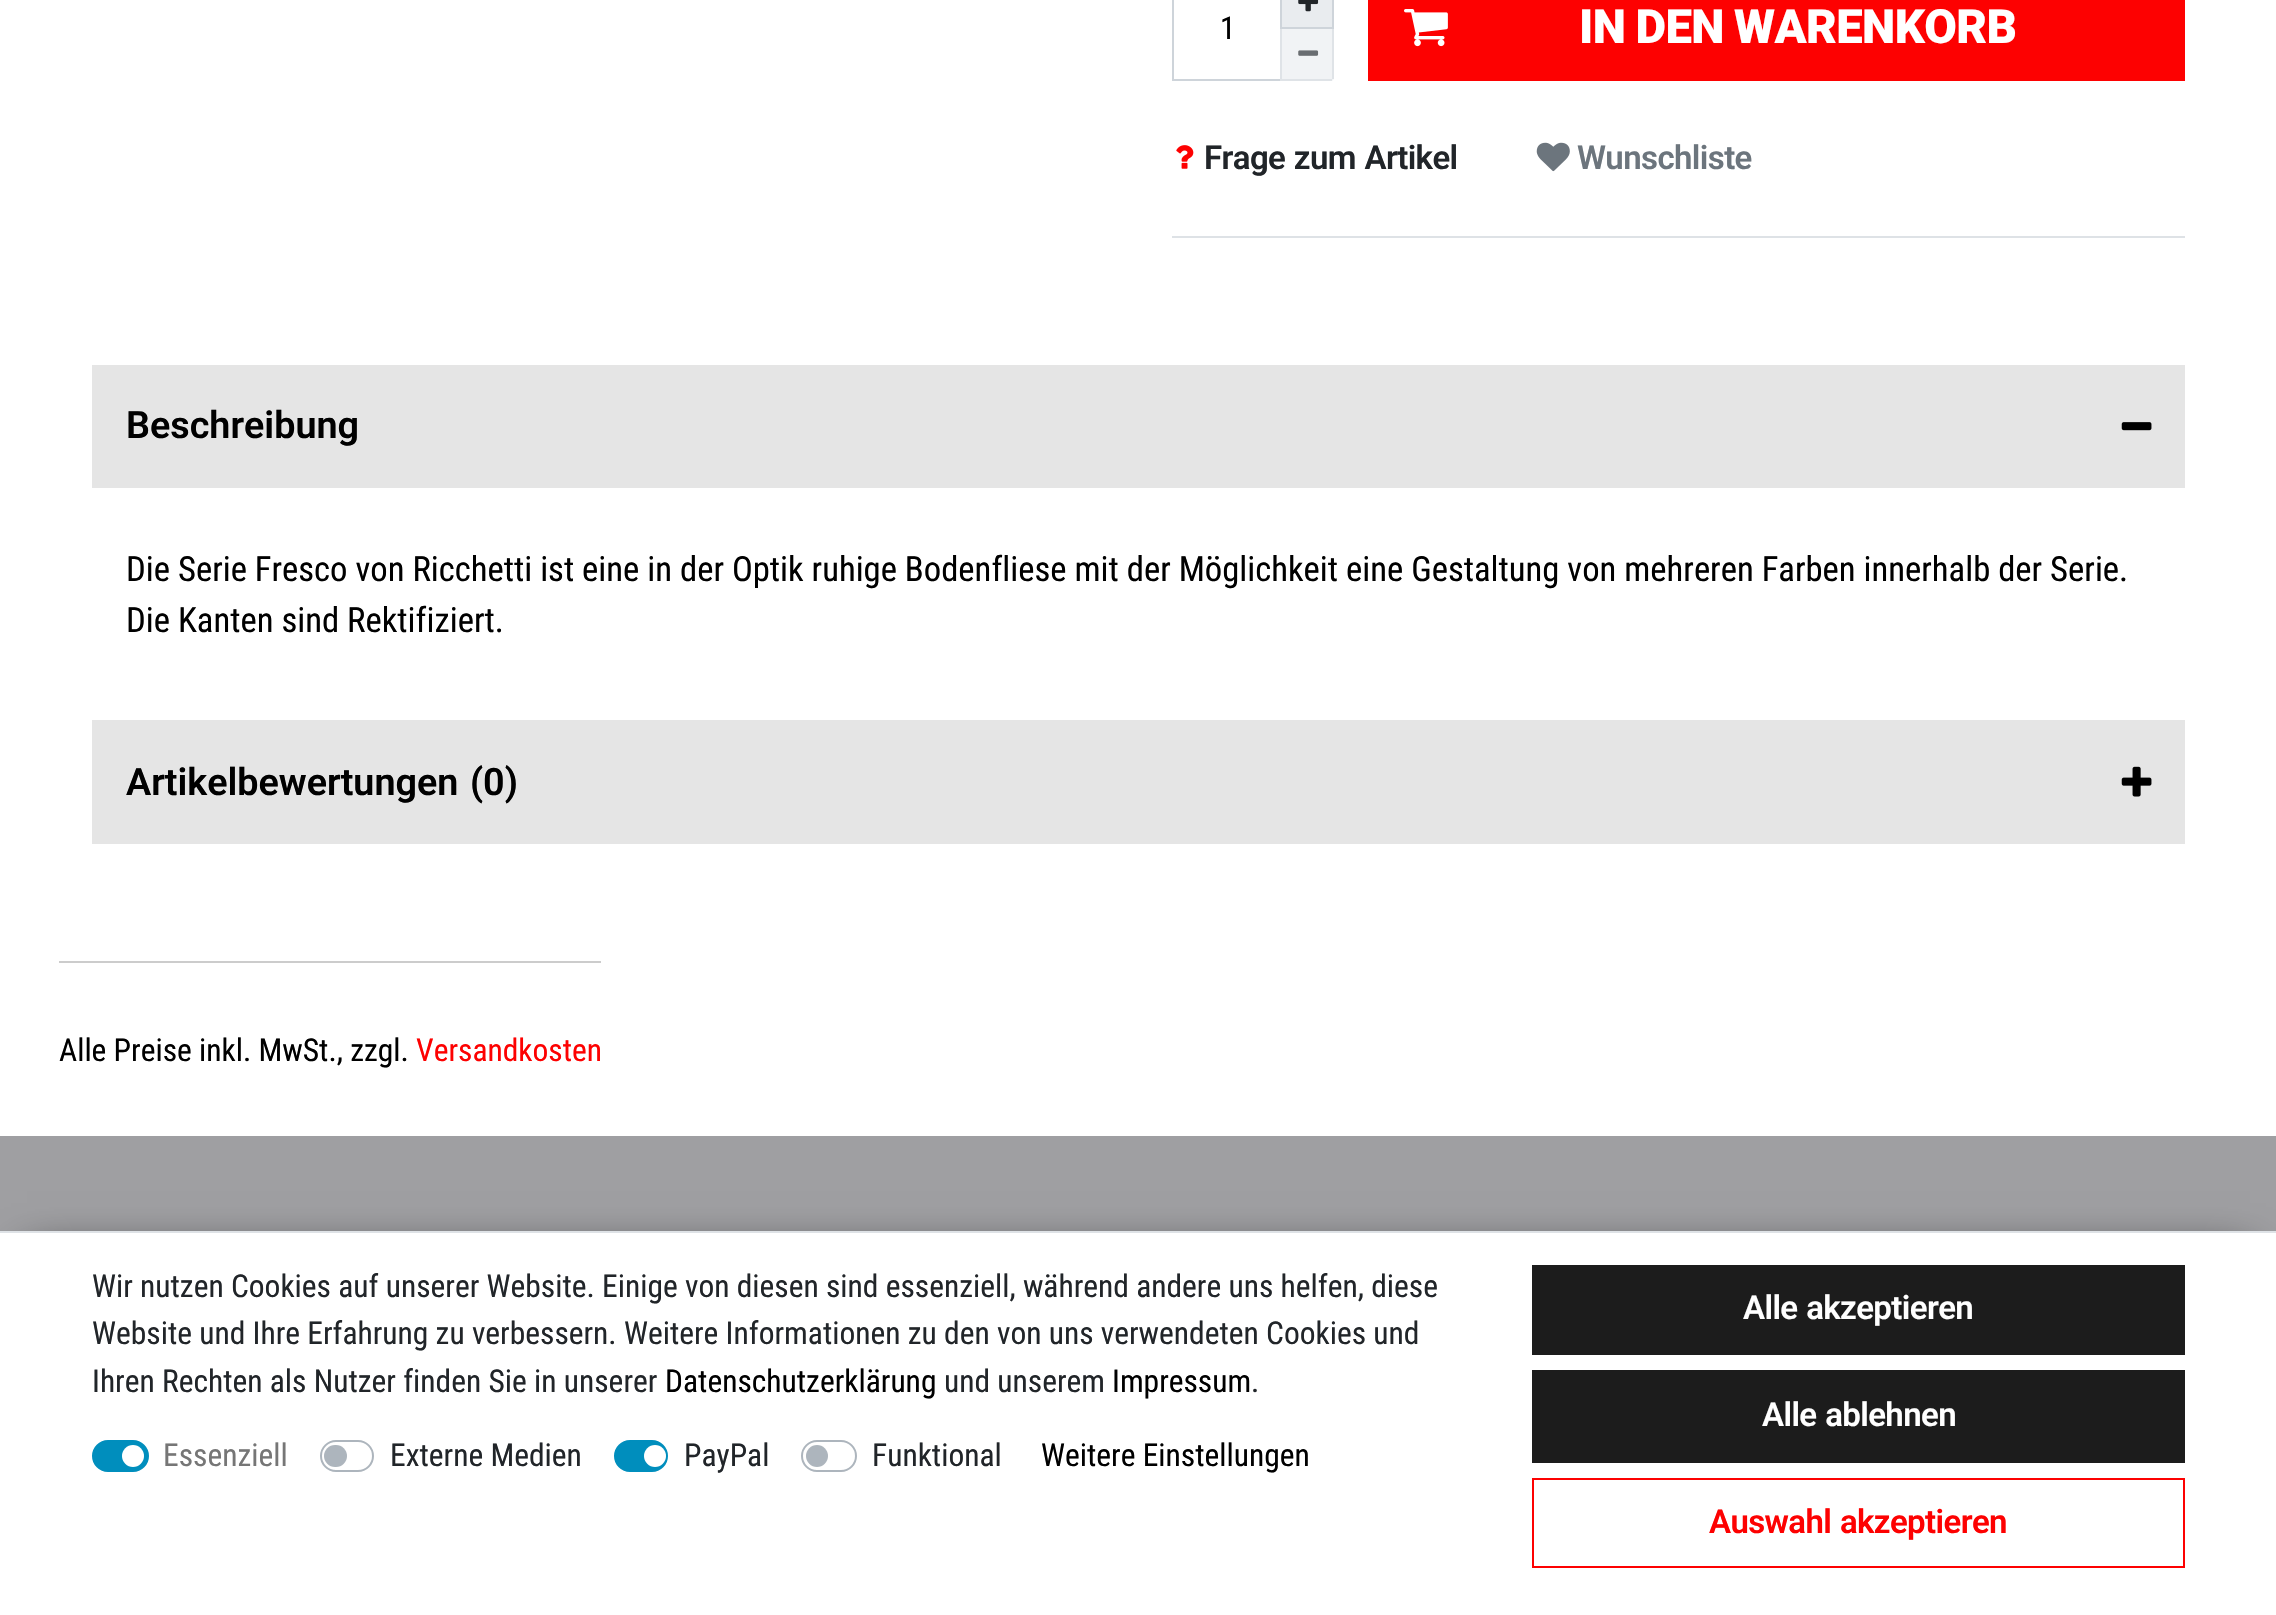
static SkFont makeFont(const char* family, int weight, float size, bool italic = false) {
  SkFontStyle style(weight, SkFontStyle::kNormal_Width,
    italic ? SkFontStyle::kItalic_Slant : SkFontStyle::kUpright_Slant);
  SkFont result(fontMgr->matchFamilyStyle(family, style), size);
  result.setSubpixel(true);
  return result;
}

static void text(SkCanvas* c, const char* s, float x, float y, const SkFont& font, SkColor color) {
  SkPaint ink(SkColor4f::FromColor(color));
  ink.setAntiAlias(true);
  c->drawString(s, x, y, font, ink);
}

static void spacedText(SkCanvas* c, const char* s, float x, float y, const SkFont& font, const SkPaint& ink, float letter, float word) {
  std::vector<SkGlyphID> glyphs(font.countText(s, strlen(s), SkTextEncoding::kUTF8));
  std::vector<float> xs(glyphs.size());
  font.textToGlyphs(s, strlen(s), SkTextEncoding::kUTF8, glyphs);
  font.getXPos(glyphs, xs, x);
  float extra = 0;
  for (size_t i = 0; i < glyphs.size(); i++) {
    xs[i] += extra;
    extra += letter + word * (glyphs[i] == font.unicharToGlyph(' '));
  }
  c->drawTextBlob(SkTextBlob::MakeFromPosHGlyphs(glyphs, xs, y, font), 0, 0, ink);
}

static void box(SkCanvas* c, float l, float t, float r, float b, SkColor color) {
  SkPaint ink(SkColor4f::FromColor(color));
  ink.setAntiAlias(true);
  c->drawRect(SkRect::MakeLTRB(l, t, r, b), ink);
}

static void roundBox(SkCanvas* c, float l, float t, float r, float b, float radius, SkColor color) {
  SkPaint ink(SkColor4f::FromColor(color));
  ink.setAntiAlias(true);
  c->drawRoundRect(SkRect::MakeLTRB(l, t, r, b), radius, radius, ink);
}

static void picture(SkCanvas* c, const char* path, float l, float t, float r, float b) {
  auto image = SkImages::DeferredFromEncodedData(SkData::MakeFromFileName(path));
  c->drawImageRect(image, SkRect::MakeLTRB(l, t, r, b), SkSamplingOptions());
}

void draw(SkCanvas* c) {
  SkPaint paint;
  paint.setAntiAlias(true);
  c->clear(0xffffffff);
  box(c, 1172, 79, 1280, 81, 0xffced4da);
  box(c, 1172, 0, 1174, 81, 0xffced4da);
  SkFont face1 = makeFont("Roboto Condensed", 400, 31.5f);
  text(c, "1", 1220, 39, face1, 0xff000000);
  paint.setColor(0xffe9ecef);
  c->drawRect(SkRect::MakeLTRB(1281, -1, 1333, 28), paint);
  paint.setStyle(SkPaint::kStroke_Style);
  paint.setStrokeWidth(2);
  paint.setColor(0xffced4da);
  c->drawRect(SkRect::MakeLTRB(1281, -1, 1333, 28), paint);
  picture(c, "img_01.png", 1298, 0, 1319, 12);
  paint.setStyle(SkPaint::kFill_Style);
  paint.setColor(0xfff1f3f5);
  c->drawPath(SkPathBuilder().moveTo(1280, 29).lineTo(1334, 29).lineTo(1334, 78).cubicTo(1334, 79.5f, 1332.5f, 81, 1331, 81).lineTo(1280, 81).close().detach(), paint);
  box(c, 1332, 29, 1334, 79, 0xffdfe3e7);
  box(c, 1280, 79, 1332, 81, 0xffdfe3e7);
  box(c, 1280, 29, 1282, 81, 0xffdfe3e7);
  picture(c, "img_02.png", 1298, 50, 1319, 56);
  box(c, 1368, 0, 2185, 81, 0xfffd0101);
  picture(c, "img_03.png", 1404, 9, 1448, 47);
  SkFont face2 = makeFont("Roboto", 900, 47.25f);
  paint.setColor(0xffffffff);
  spacedText(c, "IN DEN WARENKORB", 1579, 43, face2, paint, -0.6f, -1);
  picture(c, "img_04.png", 1176, 145, 1194, 169);
  SkFont face3 = makeFont("Roboto", 600, 33);
  paint.setColor(0xff212529);
  spacedText(c, "Frage zum Artikel", 1204, 169, face3, paint, -0.6f, 1);
  picture(c, "img_05.png", 1536, 142, 1570, 172);
  paint.setColor(0xff6c757d);
  spacedText(c, "Wunschliste", 1577, 169, face3, paint, -0.6f, 0);
  box(c, 1172, 236, 2185, 238, 0xffdee2e6);
  box(c, 92, 365, 2185, 488, 0xffe5e5e5);
  SkFont face4 = makeFont("Roboto", 600, 37.75f);
  text(c, "Beschreibung", 126, 438, face4, 0xff000000);
  picture(c, "img_06.png", 2121, 422, 2152, 431);
  SkFont face5 = makeFont("Roboto Condensed", 400, 34.65f);
  text(c, "Die Serie Fresco von Ricchetti ist eine in der Optik ruhige Bodenfliese mit der Möglichkeit eine Gestaltung von mehreren Farben innerhalb der Serie.", 126, 581, face5, 0xff000000);
  text(c, "Die Kanten sind Rektifiziert.", 126, 632, face5, 0xff000000);
  box(c, 92, 720, 2185, 844, 0xffe5e5e5);
  text(c, "Artikelbewertungen", 126, 795, face4, 0xff000000);
  text(c, "(0)", 470, 795, face4, 0xff000000);
  picture(c, "img_07.png", 2121, 766, 2152, 797);
  box(c, 59, 961, 601, 963, 0xffcccccc);
  text(c, "Alle Preise inkl. MwSt., zzgl.", 59, 1061, face1, 0xff000000);
  text(c, "Versandkosten", 416, 1061, face1, 0xfffd0101);
  box(c, 0, 1136, 2276, 1231, 0xff9f9fa2);
  paint.setColor(0xff000000);
  paint.setMaskFilter(SkMaskFilter::MakeBlur(kNormal_SkBlurStyle, 22.5f));
  c->drawRect(SkRect::MakeLTRB(27, 1258, 2250, 1589), paint);
  paint.setMaskFilter(nullptr);
  box(c, 0, 1233, 2276, 1615, 0xffffffff);
  box(c, 0, 1231, 2276, 1233, 0xffdee2e6);
  text(c, "Wir nutzen Cookies auf unserer Website. Einige von diesen sind essenziell, während andere uns helfen, diese", 92, 1297, face1, 0xff212529);
  text(c, "Website und Ihre Erfahrung zu verbessern. Weitere Informationen zu den von uns verwendeten Cookies und", 92, 1344, face1, 0xff212529);
  text(c, "Ihren Rechten als Nutzer finden Sie in unserer", 92, 1392, face1, 0xff212529);
  text(c, "Datenschutzerklärung", 665, 1392, face1, 0xff000000);
  text(c, "und unserem", 944, 1392, face1, 0xff212529);
  text(c, "Impressum", 1112, 1392, face1, 0xff000000);
  text(c, ".", 1251, 1392, face1, 0xff212529);
  paint.setColor(0xff008ebd);
  c->drawRoundRect(SkRect::MakeLTRB(93, 1441, 148, 1471), 15, 15, paint);
  paint.setStyle(SkPaint::kStroke_Style);
  c->drawRoundRect(SkRect::MakeLTRB(93, 1441, 148, 1471), 15, 15, paint);
  text(c, "Essenziell", 163, 1466, face1, 0xff767676);
  paint.setStyle(SkPaint::kFill_Style);
  paint.setColor(0xffffffff);
  c->drawCircle(133, 1456, 11, paint);
  paint.setStyle(SkPaint::kStroke_Style);
  paint.setColor(0xffadb5bd);
  c->drawRoundRect(SkRect::MakeLTRB(321, 1441, 373, 1471), 15, 15, paint);
  text(c, "Externe Medien", 390, 1466, face1, 0xff212529);
  roundBox(c, 324, 1445, 347, 1467, 11, 0xffadb5bd);
  paint.setStyle(SkPaint::kFill_Style);
  paint.setColor(0xff008ebd);
  c->drawRoundRect(SkRect::MakeLTRB(615, 1441, 667, 1471), 15, 15, paint);
  paint.setStyle(SkPaint::kStroke_Style);
  c->drawRoundRect(SkRect::MakeLTRB(615, 1441, 667, 1471), 15, 15, paint);
  text(c, "PayPal", 684, 1466, face1, 0xff212529);
  paint.setStyle(SkPaint::kFill_Style);
  paint.setColor(0xffffffff);
  c->drawCircle(655, 1456, 11, paint);
  paint.setStyle(SkPaint::kStroke_Style);
  paint.setColor(0xffadb5bd);
  c->drawRoundRect(SkRect::MakeLTRB(802, 1441, 856, 1471), 15, 15, paint);
  text(c, "Funktional", 872, 1466, face1, 0xff212529);
  paint.setStyle(SkPaint::kFill_Style);
  c->drawCircle(817, 1456, 11, paint);
  text(c, "Weitere Einstellungen", 1041, 1466, face1, 0xff000000);
  box(c, 1532, 1265, 2185, 1355, 0xff1c1c1c);
  paint.setColor(0xffffffff);
  spacedText(c, "Alle akzeptieren", 1743, 1319, face3, paint, -0.6f, 1);
  box(c, 1532, 1370, 2185, 1463, 0xff1c1c1c);
  spacedText(c, "Alle ablehnen", 1762, 1426, face3, paint, -0.6f, 1);
  paint.setStyle(SkPaint::kStroke_Style);
  paint.setColor(0xfffd0101);
  c->drawRect(SkRect::MakeLTRB(1533, 1479, 2184, 1567), paint);
  paint.setStyle(SkPaint::kFill_Style);
  spacedText(c, "Auswahl akzeptieren", 1709, 1533, face3, paint, -0.6f, 1);
}
